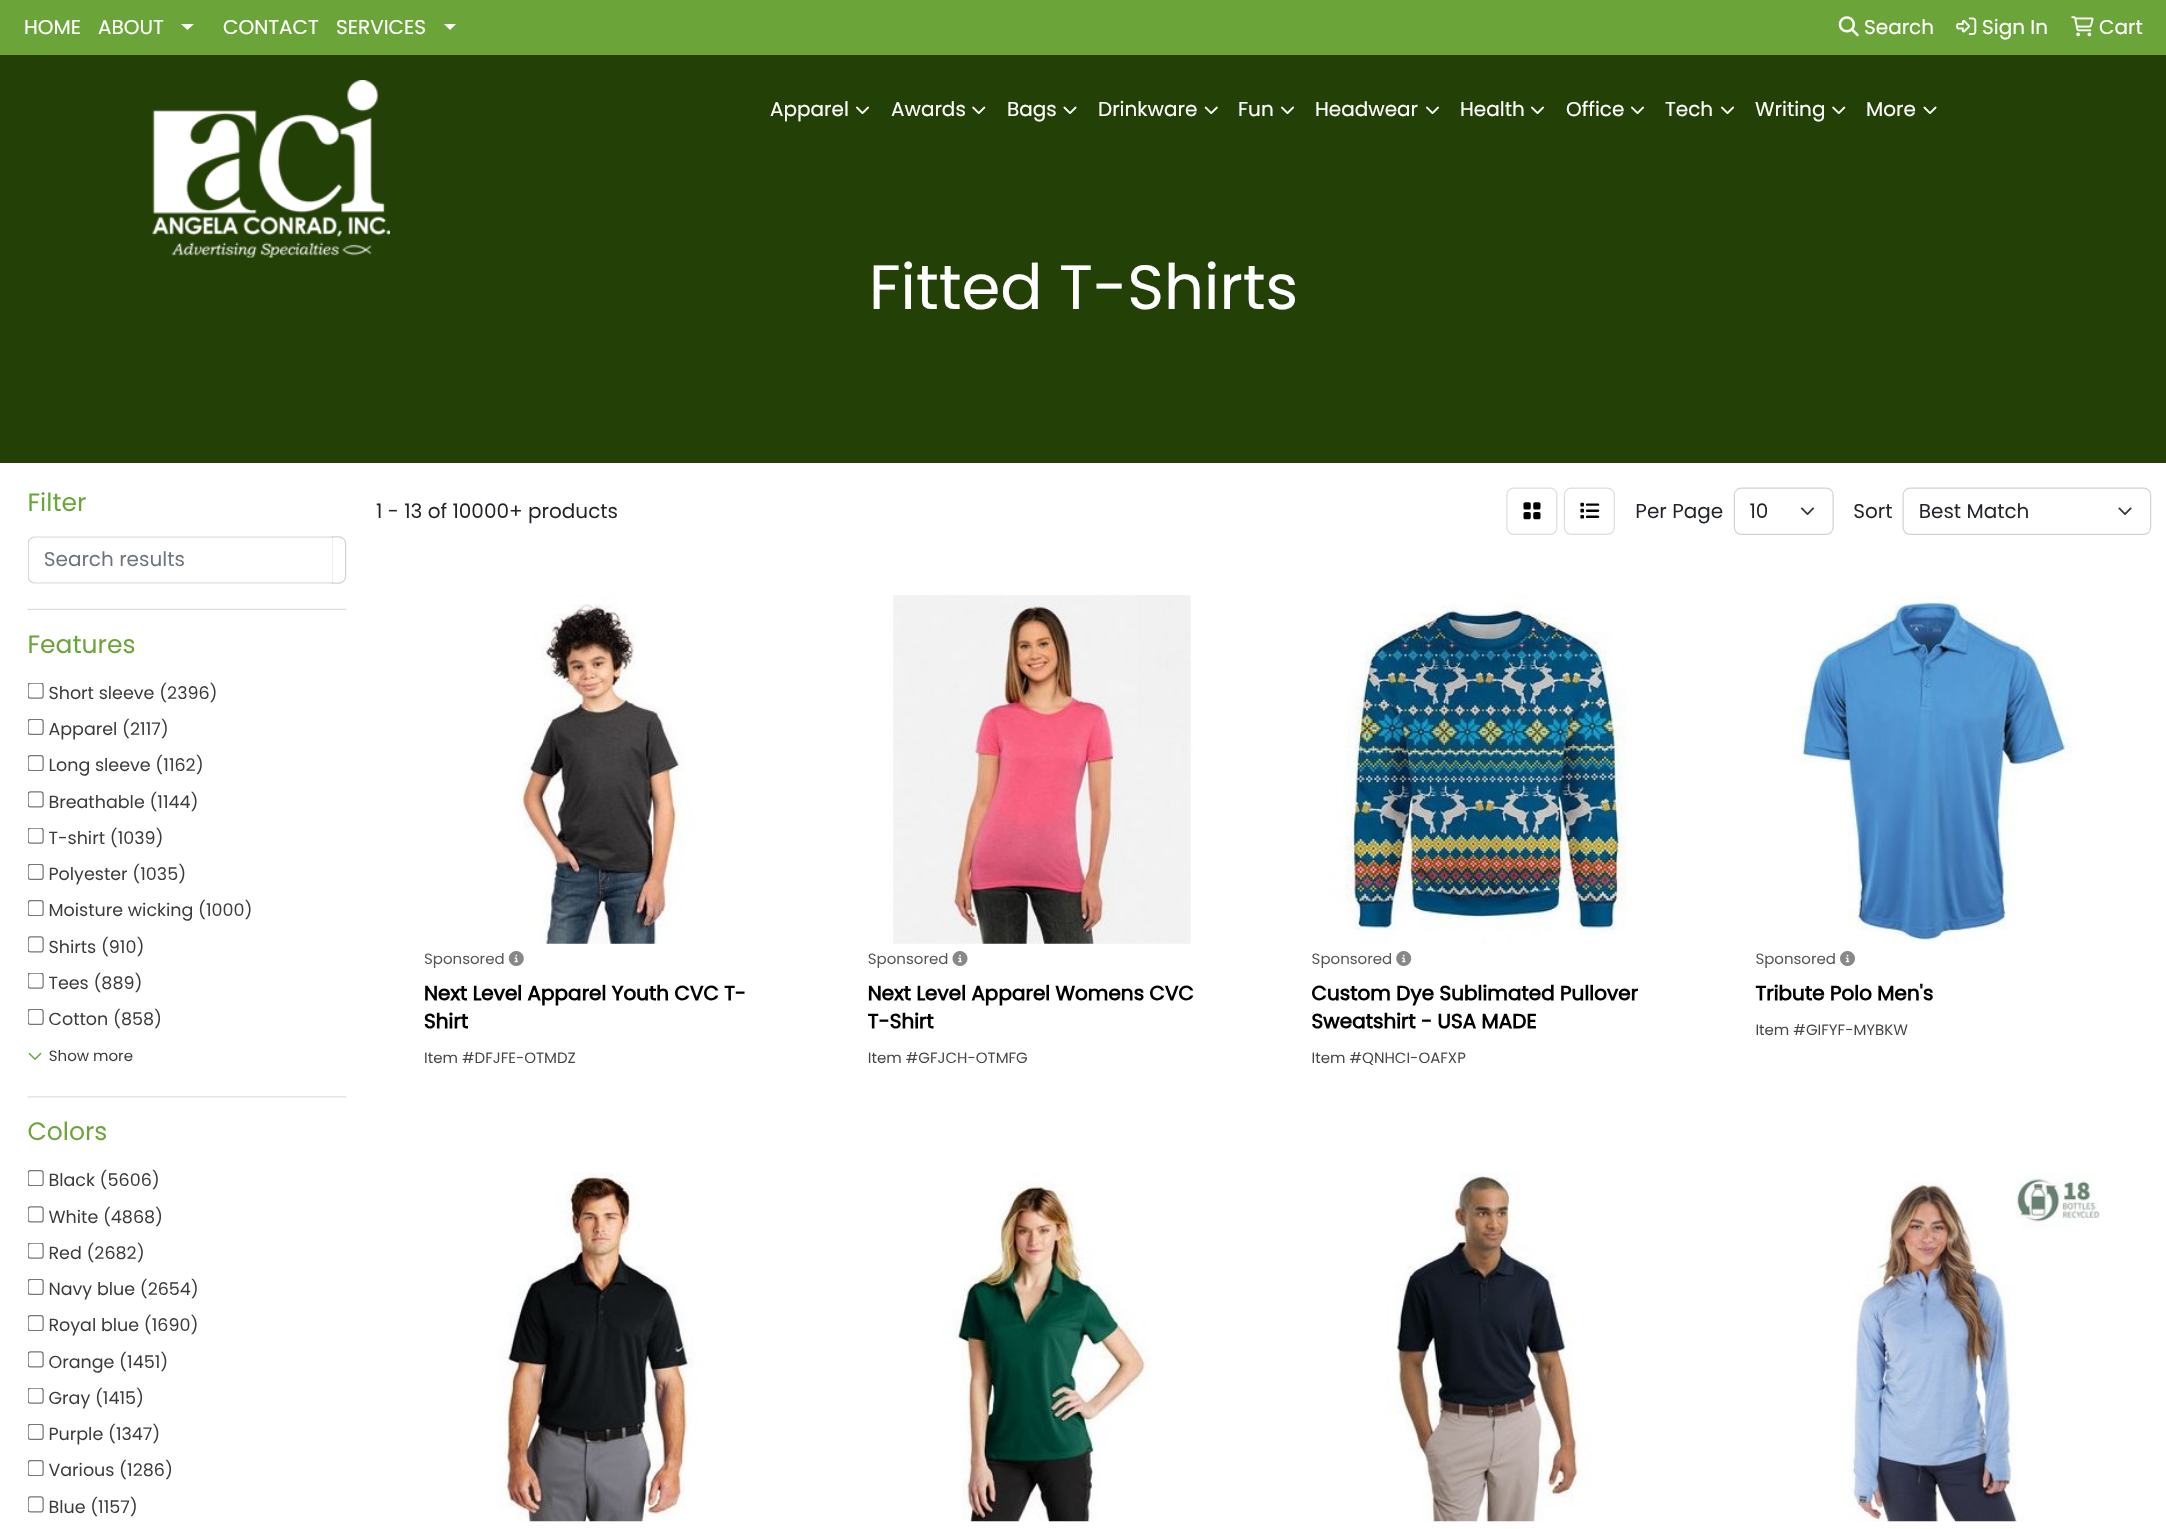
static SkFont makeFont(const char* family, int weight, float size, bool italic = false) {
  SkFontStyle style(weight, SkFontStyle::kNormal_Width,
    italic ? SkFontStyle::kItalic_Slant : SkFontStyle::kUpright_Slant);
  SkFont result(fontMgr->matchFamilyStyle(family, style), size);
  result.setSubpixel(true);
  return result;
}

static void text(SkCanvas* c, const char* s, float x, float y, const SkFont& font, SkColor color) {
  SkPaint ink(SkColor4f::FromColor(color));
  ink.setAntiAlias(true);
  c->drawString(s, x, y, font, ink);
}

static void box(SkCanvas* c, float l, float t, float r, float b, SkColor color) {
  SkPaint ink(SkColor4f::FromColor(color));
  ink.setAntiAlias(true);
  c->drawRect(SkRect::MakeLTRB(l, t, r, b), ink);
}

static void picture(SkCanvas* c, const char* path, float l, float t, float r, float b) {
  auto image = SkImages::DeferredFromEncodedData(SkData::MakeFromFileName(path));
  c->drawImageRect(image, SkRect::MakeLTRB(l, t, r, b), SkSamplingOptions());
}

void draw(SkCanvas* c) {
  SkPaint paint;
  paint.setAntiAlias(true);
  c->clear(0xffffffff);
  box(c, 0, 0, 2166, 55, 0xff6ba539);
  SkFont face1 = makeFont("Poppins", 400, 20);
  text(c, "HOME", 24, 34, face1, 0xffffffff);
  text(c, "ABOUT", 98, 34, face1, 0xffffffff);
  paint.setColor(0xffffffff);
  c->drawPath(SkPathBuilder().moveTo(181, 24).lineTo(194, 24).lineTo(187.5f, 30).close().detach(), paint);
  text(c, "CONTACT", 223, 34, face1, 0xffffffff);
  text(c, "SERVICES", 336, 34, face1, 0xffffffff);
  c->drawPath(SkPathBuilder().moveTo(444, 24).lineTo(456, 24).lineTo(450, 30).close().detach(), paint);
  picture(c, "img_01.png", 1838, 16, 1859, 37);
  text(c, "Search", 1864, 34, face1, 0xffffffff);
  picture(c, "img_02.png", 1956, 17, 1977, 35);
  text(c, "Sign In", 1982, 34, face1, 0xffffffff);
  picture(c, "img_03.png", 2071, 16, 2094, 37);
  text(c, "Cart", 2099, 34, face1, 0xffffffff);
  box(c, 0, 55, 2166, 463, 0xff234007);
  picture(c, "img_04.png", 152, 80, 390, 258);
  text(c, "Apparel", 770, 116, face1, 0xffffffff);
  picture(c, "img_05.png", 856, 106, 869, 114);
  text(c, "Awards", 891, 116, face1, 0xffffffff);
  picture(c, "img_06.png", 972, 106, 986, 114);
  text(c, "Bags", 1007, 116, face1, 0xffffffff);
  picture(c, "img_07.png", 1063, 106, 1077, 114);
  text(c, "Drinkware", 1098, 116, face1, 0xffffffff);
  picture(c, "img_08.png", 1204, 106, 1218, 114);
  text(c, "Fun", 1238, 116, face1, 0xffffffff);
  picture(c, "img_05.png", 1281, 106, 1294, 114);
  text(c, "Headwear", 1315, 116, face1, 0xffffffff);
  picture(c, "img_05.png", 1426, 106, 1439, 114);
  text(c, "Health", 1460, 116, face1, 0xffffffff);
  picture(c, "img_05.png", 1531, 106, 1544, 114);
  text(c, "Office", 1566, 116, face1, 0xffffffff);
  picture(c, "img_05.png", 1631, 106, 1644, 114);
  text(c, "Tech", 1665, 116, face1, 0xffffffff);
  picture(c, "img_05.png", 1721, 106, 1734, 114);
  text(c, "Writing", 1755, 116, face1, 0xffffffff);
  picture(c, "img_06.png", 1832, 106, 1846, 114);
  text(c, "More", 1866, 116, face1, 0xffffffff);
  picture(c, "img_07.png", 1923, 106, 1937, 114);
  SkFont face2 = makeFont("Poppins", 400, 62.5f);
  text(c, "Fitted T-Shirts", 869, 309, face2, 0xffffffff);
  picture(c, "img_09.png", 27, 487, 2152, 1522);
}
